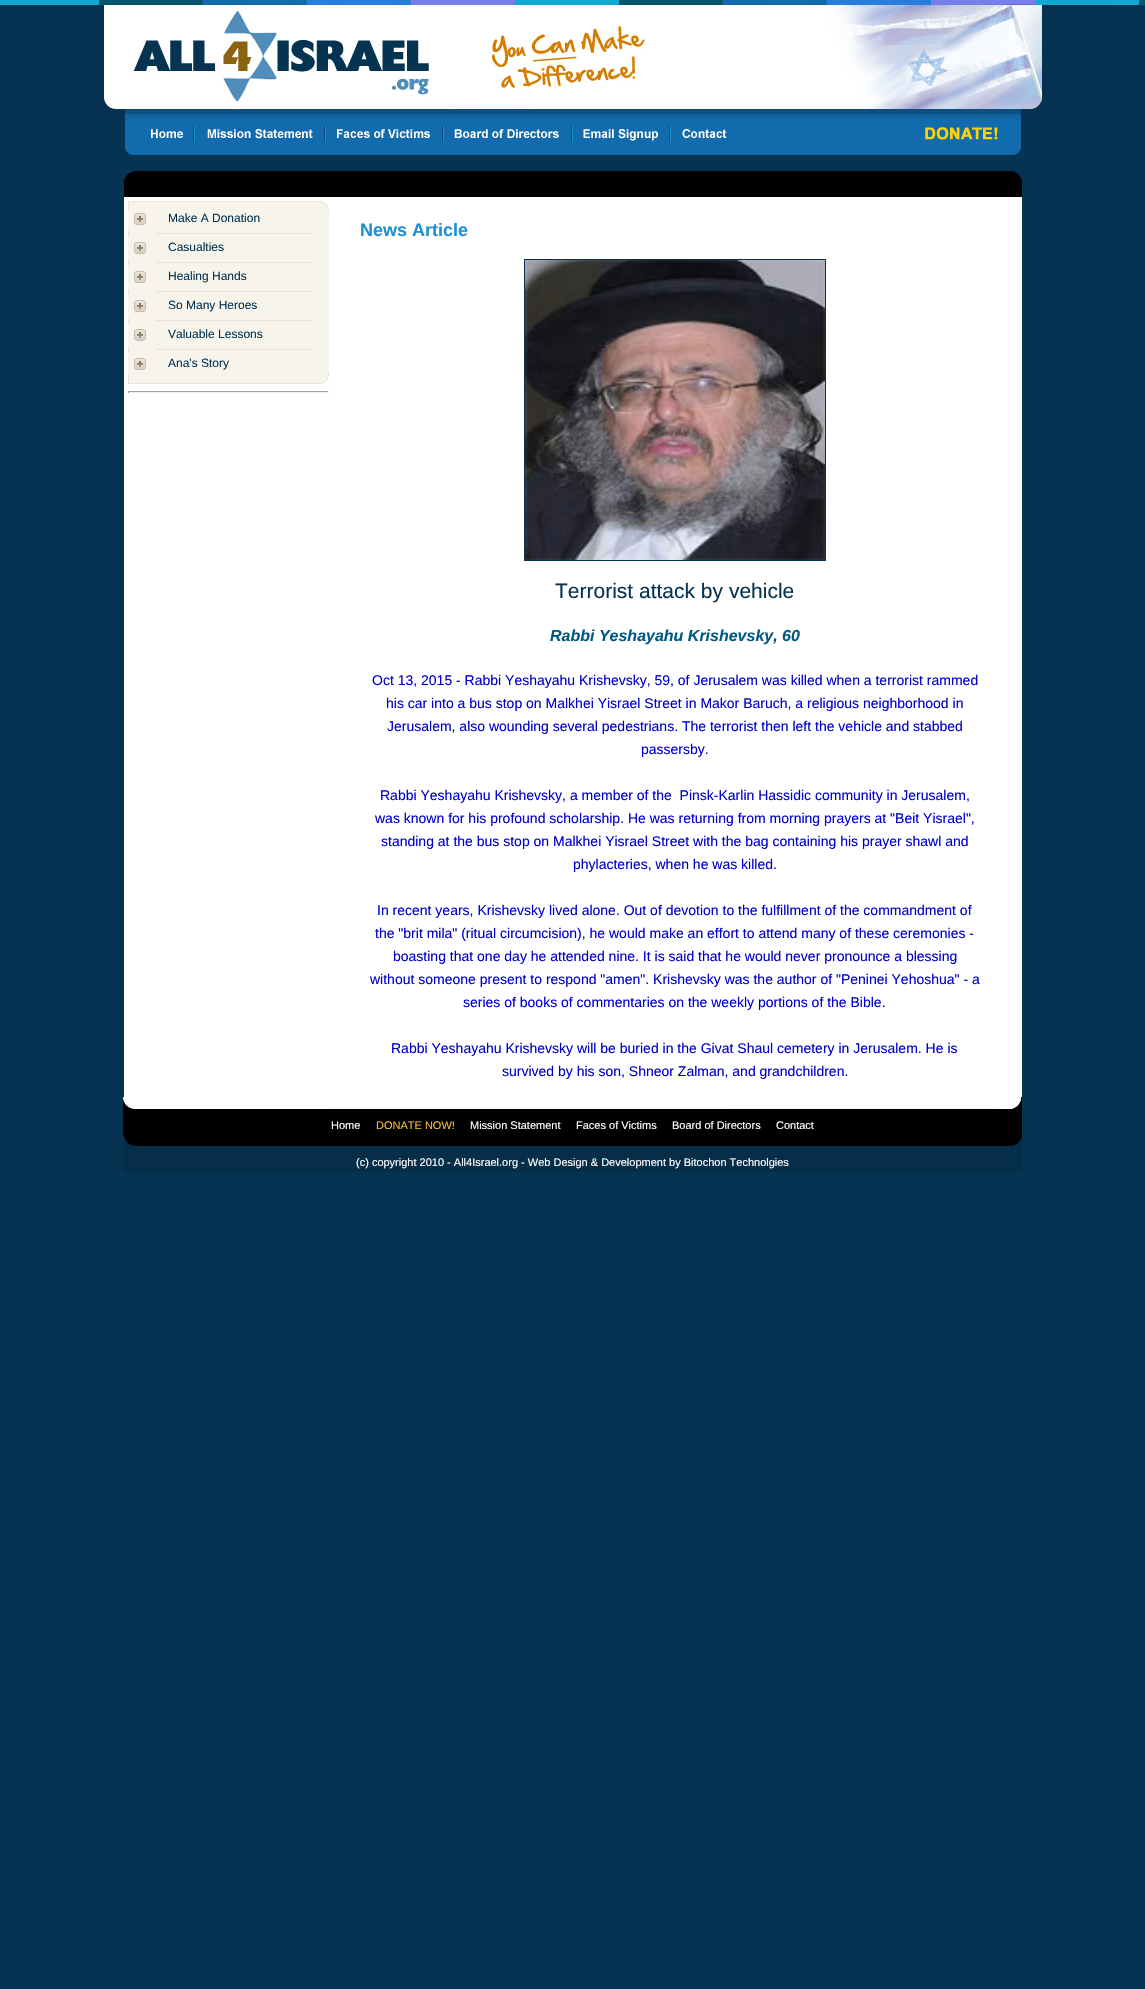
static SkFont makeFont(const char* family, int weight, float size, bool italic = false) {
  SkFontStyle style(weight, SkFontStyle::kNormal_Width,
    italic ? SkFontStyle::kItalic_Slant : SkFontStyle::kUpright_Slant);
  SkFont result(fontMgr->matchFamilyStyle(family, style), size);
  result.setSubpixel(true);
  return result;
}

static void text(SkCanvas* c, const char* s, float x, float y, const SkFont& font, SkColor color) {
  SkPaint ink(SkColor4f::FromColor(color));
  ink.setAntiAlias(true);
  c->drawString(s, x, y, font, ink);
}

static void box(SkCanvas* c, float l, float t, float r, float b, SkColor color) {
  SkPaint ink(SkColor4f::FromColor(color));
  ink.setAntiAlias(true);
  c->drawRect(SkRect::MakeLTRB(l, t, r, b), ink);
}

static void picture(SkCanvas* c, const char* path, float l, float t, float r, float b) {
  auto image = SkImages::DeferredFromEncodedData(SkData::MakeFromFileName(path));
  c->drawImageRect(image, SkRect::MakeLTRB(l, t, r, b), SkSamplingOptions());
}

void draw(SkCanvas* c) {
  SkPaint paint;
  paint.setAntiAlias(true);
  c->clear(0xff063351);
  picture(c, "img_01.png", 0, 0, 1145, 5);
  picture(c, "img_02.png", 104, 5, 1042, 114);
  picture(c, "img_03.png", 125, 114, 1021, 155);
  picture(c, "img_04.png", 124, 171, 1022, 197);
  box(c, 124, 197, 1022, 1097, 0xffffffff);
  box(c, 128, 210, 329, 373, 0xfff7f5eb);
  picture(c, "img_05.png", 128, 201, 329, 210);
  picture(c, "img_06.png", 134, 213, 146, 225);
  SkFont face1 = makeFont("Liberation Sans", 400, 12);
  text(c, "Make A Donation", 168, 222, face1, 0xff063351);
  picture(c, "img_07.png", 128, 231, 312, 236);
  picture(c, "img_06.png", 134, 242, 146, 254);
  text(c, "Casualties", 168, 251, face1, 0xff063351);
  picture(c, "img_07.png", 128, 260, 312, 265);
  picture(c, "img_06.png", 134, 271, 146, 283);
  text(c, "Healing Hands", 168, 280, face1, 0xff063351);
  picture(c, "img_07.png", 128, 289, 312, 294);
  picture(c, "img_06.png", 134, 300, 146, 312);
  text(c, "So Many Heroes", 168, 309, face1, 0xff063351);
  picture(c, "img_07.png", 128, 318, 312, 323);
  picture(c, "img_06.png", 134, 329, 146, 341);
  text(c, "Valuable Lessons", 168, 338, face1, 0xff063351);
  picture(c, "img_07.png", 128, 347, 312, 352);
  picture(c, "img_06.png", 134, 358, 146, 370);
  text(c, "Ana's Story", 168, 367, face1, 0xff063351);
  picture(c, "img_08.png", 128, 373, 329, 384);
  box(c, 128, 391, 329, 392, 0xff9f9f9f);
  box(c, 328, 391, 329, 393, 0xffeeeeee);
  box(c, 128, 392, 329, 393, 0xffeeeeee);
  box(c, 128, 391, 129, 393, 0xff9f9f9f);
  SkFont face2 = makeFont("Liberation Sans", 700, 18);
  text(c, "News Article", 360, 236, face2, 0xff1d8fd6);
  paint.setStyle(SkPaint::kStroke_Style);
  paint.setStrokeWidth(1);
  paint.setColor(0xff063351);
  c->drawRect(SkRect::MakeLTRB(524.5f, 259.5f, 825.5f, 560.5f), paint);
  picture(c, "img_09.png", 525, 260, 825, 560);
  SkFont face3 = makeFont("Liberation Sans", 400, 21);
  text(c, "Terrorist attack by vehicle", 555, 598, face3, 0xff063351);
  SkFont face4 = makeFont("Liberation Sans", 700, 16, true);
  text(c, "Rabbi Yeshayahu Krishevsky, 60", 550, 641, face4, 0xff005984);
  SkFont face5 = makeFont("Liberation Sans", 400, 14);
  text(c, "Oct 13, 2015 - Rabbi Yeshayahu Krishevsky, 59, of Jerusalem was killed when a terrorist rammed", 372, 685, face5, 0xff0000cd);
  text(c, "his car into a bus stop on Malkhei Yisrael Street in Makor Baruch, a religious neighborhood in", 386, 708, face5, 0xff0000cd);
  text(c, "Jerusalem, also wounding several pedestrians. The terrorist then left the vehicle and stabbed", 387, 731, face5, 0xff0000cd);
  text(c, "passersby.", 641, 754, face5, 0xff0000cd);
  text(c, "Rabbi Yeshayahu Krishevsky, a member of the  Pinsk-Karlin Hassidic community in Jerusalem,", 380, 800, face5, 0xff0000cd);
  text(c, "was known for his profound scholarship. He was returning from morning prayers at \"Beit Yisrael\",", 375, 823, face5, 0xff0000cd);
  text(c, "standing at the bus stop on Malkhei Yisrael Street with the bag containing his prayer shawl and", 381, 846, face5, 0xff0000cd);
  text(c, "phylacteries, when he was killed.", 573, 869, face5, 0xff0000cd);
  text(c, "In recent years, Krishevsky lived alone. Out of devotion to the fulfillment of the commandment of", 377, 915, face5, 0xff0000cd);
  text(c, "the \"brit mila\" (ritual circumcision), he would make an effort to attend many of these ceremonies -", 375, 938, face5, 0xff0000cd);
  text(c, "boasting that one day he attended nine. It is said that he would never pronounce a blessing", 393, 961, face5, 0xff0000cd);
  text(c, "without someone present to respond \"amen\". Krishevsky was the author of \"Peninei Yehoshua\" - a", 370, 984, face5, 0xff0000cd);
  text(c, "series of books of commentaries on the weekly portions of the Bible.", 463, 1007, face5, 0xff0000cd);
  text(c, "Rabbi Yeshayahu Krishevsky will be buried in the Givat Shaul cemetery in Jerusalem. He is", 391, 1053, face5, 0xff0000cd);
  text(c, "survived by his son, Shneor Zalman, and grandchildren.", 502, 1076, face5, 0xff0000cd);
  box(c, 123, 1097, 1022, 1136, 0xff000000);
  picture(c, "img_10.png", 123, 1097, 1021, 1109);
  SkFont face6 = makeFont("Liberation Sans", 400, 11);
  text(c, "Home", 331, 1129, face6, 0xffffffff);
  text(c, "DONATE NOW!", 376, 1129, face6, 0xfff5be3d);
  text(c, "Mission Statement", 470, 1129, face6, 0xffffffff);
  text(c, "Faces of Victims", 576, 1129, face6, 0xffffffff);
  text(c, "Board of Directors", 672, 1129, face6, 0xffffffff);
  text(c, "Contact", 776, 1129, face6, 0xffffffff);
  picture(c, "img_11.png", 123, 1136, 1022, 1152);
  box(c, 123, 1152, 1022, 1172, 0xff062e49);
  text(c, "(c) copyright 2010 - All4Israel.org - Web Design & Development by Bitochon Technolgies", 356, 1166, face6, 0xffffffff);
}
